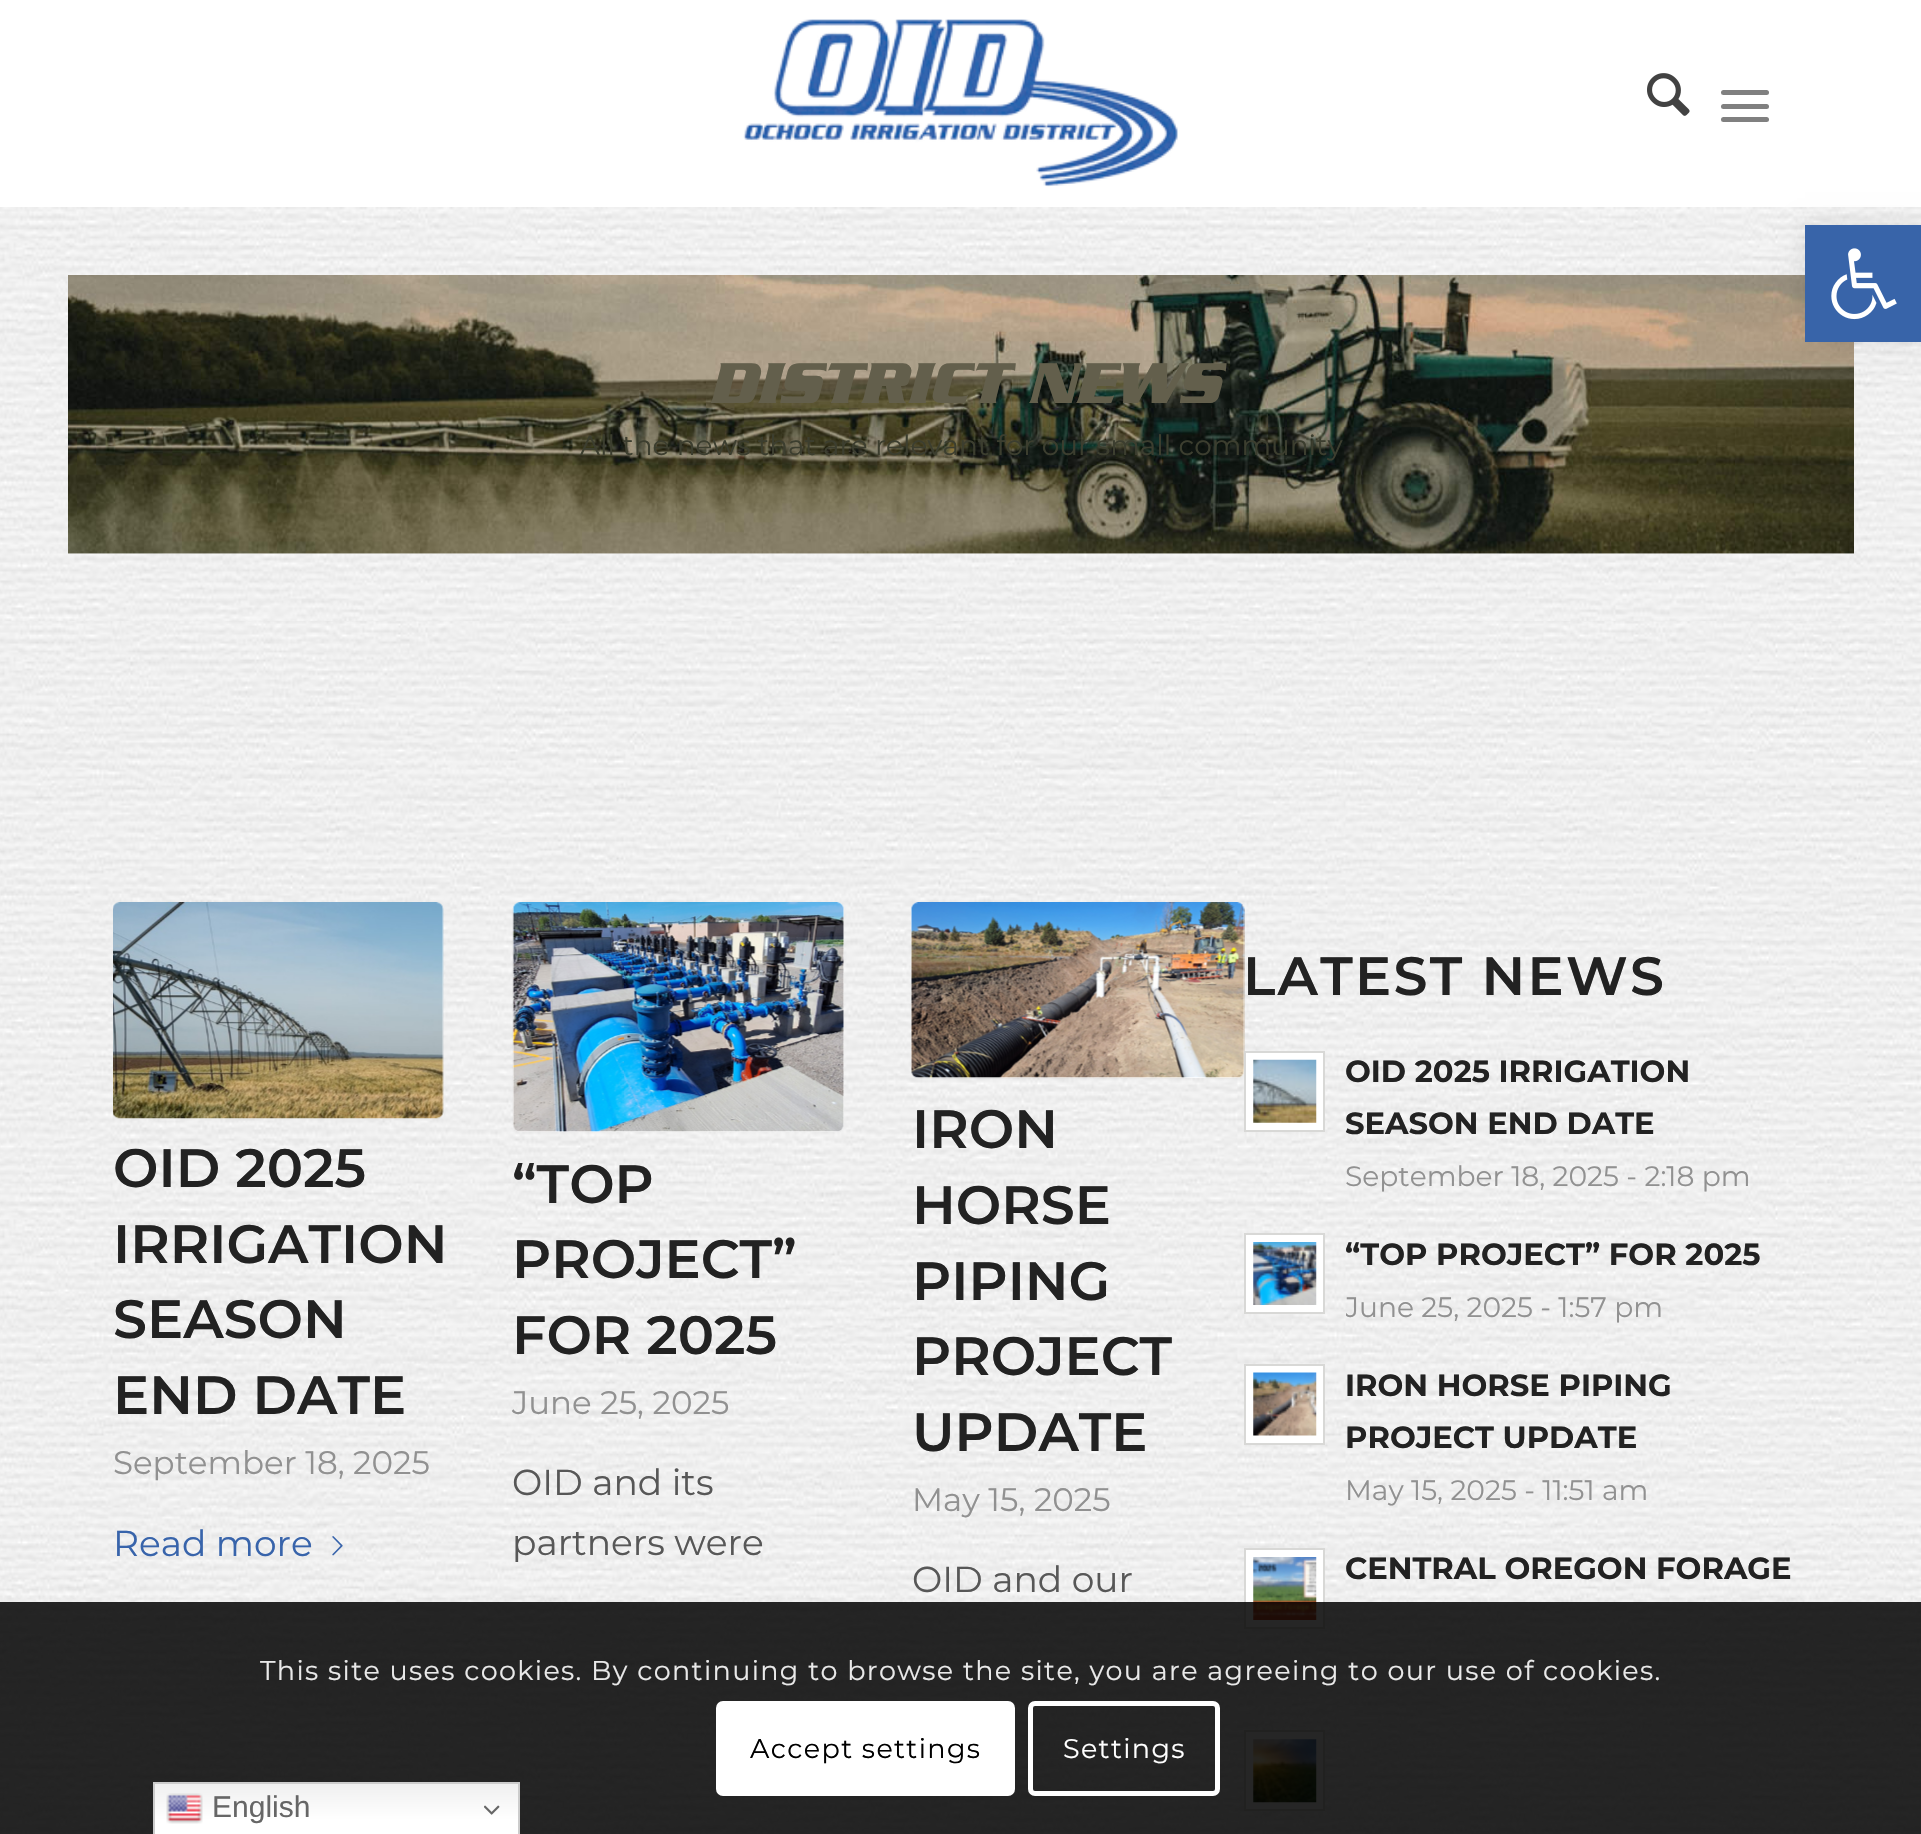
static SkFont makeFont(const char* family, int weight, float size, bool italic = false) {
  SkFontStyle style(weight, SkFontStyle::kNormal_Width,
    italic ? SkFontStyle::kItalic_Slant : SkFontStyle::kUpright_Slant);
  SkFont result(fontMgr->matchFamilyStyle(family, style), size);
  result.setSubpixel(true);
  return result;
}

static void text(SkCanvas* c, const char* s, float x, float y, const SkFont& font, SkColor color) {
  SkPaint ink(SkColor4f::FromColor(color));
  ink.setAntiAlias(true);
  c->drawString(s, x, y, font, ink);
}

static void spacedText(SkCanvas* c, const char* s, float x, float y, const SkFont& font, const SkPaint& ink, float letter, float word) {
  std::vector<SkGlyphID> glyphs(font.countText(s, strlen(s), SkTextEncoding::kUTF8));
  std::vector<float> xs(glyphs.size());
  font.textToGlyphs(s, strlen(s), SkTextEncoding::kUTF8, glyphs);
  font.getXPos(glyphs, xs, x);
  float extra = 0;
  for (size_t i = 0; i < glyphs.size(); i++) {
    xs[i] += extra;
    extra += letter + word * (glyphs[i] == font.unicharToGlyph(' '));
  }
  c->drawTextBlob(SkTextBlob::MakeFromPosHGlyphs(glyphs, xs, y, font), 0, 0, ink);
}

static void box(SkCanvas* c, float l, float t, float r, float b, SkColor color) {
  SkPaint ink(SkColor4f::FromColor(color));
  ink.setAntiAlias(true);
  c->drawRect(SkRect::MakeLTRB(l, t, r, b), ink);
}

static void roundBox(SkCanvas* c, float l, float t, float r, float b, float radius, SkColor color) {
  SkPaint ink(SkColor4f::FromColor(color));
  ink.setAntiAlias(true);
  c->drawRoundRect(SkRect::MakeLTRB(l, t, r, b), radius, radius, ink);
}

static void picture(SkCanvas* c, const char* path, float l, float t, float r, float b) {
  auto image = SkImages::DeferredFromEncodedData(SkData::MakeFromFileName(path));
  c->drawImageRect(image, SkRect::MakeLTRB(l, t, r, b), SkSamplingOptions());
}

void draw(SkCanvas* c) {
  SkPaint paint;
  paint.setAntiAlias(true);
  c->clear(0xffffffff);
  picture(c, "img_04.png", 0, 207, 1921, 621);
  picture(c, "img_05.png", 68, 275, 1854, 554);
  paint.setColor(0x1a000000);
  paint.setMaskFilter(SkMaskFilter::MakeBlur(kNormal_SkBlurStyle, 11));
  c->drawRect(SkRect::MakeLTRB(1805, 225, 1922, 342), paint);
  paint.setMaskFilter(nullptr);
  box(c, 1805, 225, 1921, 342, 0xff3864a9);
  picture(c, "img_01.png", 1831, 248, 1897, 320);
  picture(c, "img_02.png", 743, 19, 1178, 187);
  picture(c, "img_03.png", 1647, 73, 1690, 116);
  roundBox(c, 1721, 104, 1769, 109, 2.5f, 0xff808080);
  roundBox(c, 1721, 90, 1769, 95, 2.5f, 0xff808080);
  roundBox(c, 1721, 117, 1769, 122, 2.5f, 0xff808080);
  SkFont face1 = makeFont("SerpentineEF", 700, 59.5f, true);
  text(c, "DISTRICT NEWS", 712, 403, face1, 0xff635f4c);
  SkFont face2 = makeFont("Montserrat", 400, 27.9f);
  text(c, "All the news that are relevant for our small community", 580, 455, face2, 0xff3c3e2f);
  picture(c, "img_06.png", 0, 621, 1921, 1834);
  roundBox(c, 113, 902, 443, 1118, 7, 0xffffffff);
  picture(c, "img_07.png", 113, 902, 444, 1119);
  SkFont face3 = makeFont("Montserrat", 600, 54);
  text(c, "OID 2025", 113, 1187, face3, 0xff222222);
  text(c, "IRRIGATION", 113, 1263, face3, 0xff222222);
  text(c, "SEASON", 113, 1338, face3, 0xff222222);
  text(c, "END DATE", 113, 1414, face3, 0xff222222);
  SkFont face4 = makeFont("Montserrat", 400, 32.5f);
  text(c, "September 18, 2025", 113, 1474, face4, 0xff919191);
  SkFont face5 = makeFont("Montserrat", 400, 36);
  text(c, "Read more", 113, 1556, face5, 0xff3864ab);
  picture(c, "img_08.png", 332, 1536, 343, 1556);
  roundBox(c, 513, 902, 844, 1132, 7, 0xffffffff);
  picture(c, "img_09.png", 512, 902, 844, 1132);
  text(c, "“TOP", 512, 1203, face3, 0xff222222);
  text(c, "PROJECT”", 512, 1278, face3, 0xff222222);
  text(c, "FOR 2025", 512, 1354, face3, 0xff222222);
  text(c, "June 25, 2025", 512, 1414, face4, 0xff919191);
  text(c, "OID and its", 512, 1495, face5, 0xff575757);
  text(c, "partners were", 512, 1555, face5, 0xff575757);
  roundBox(c, 911, 902, 1244, 1078, 7, 0xffffffff);
  picture(c, "img_10.png", 911, 902, 1245, 1079);
  text(c, "IRON", 912, 1148, face3, 0xff222222);
  text(c, "HORSE", 912, 1224, face3, 0xff222222);
  text(c, "PIPING", 912, 1300, face3, 0xff222222);
  text(c, "PROJECT", 912, 1375, face3, 0xff222222);
  text(c, "UPDATE", 912, 1451, face3, 0xff222222);
  text(c, "May 15, 2025", 912, 1511, face4, 0xff919191);
  text(c, "OID and our", 912, 1592, face5, 0xff575757);
  paint.setColor(0xff222222);
  spacedText(c, "LATEST NEWS", 1243, 995, face3, paint, 2.25f, 0);
  paint.setColor(0xffffffff);
  c->drawRect(SkRect::MakeLTRB(1245, 1052, 1324, 1131), paint);
  paint.setStyle(SkPaint::kStroke_Style);
  paint.setStrokeWidth(2);
  paint.setColor(0xffd8d8d6);
  c->drawRect(SkRect::MakeLTRB(1245, 1052, 1324, 1131), paint);
  picture(c, "img_11.png", 1253, 1059, 1317, 1123);
  SkFont face6 = makeFont("Montserrat", 700, 30.6f);
  text(c, "OID 2025 IRRIGATION", 1345, 1082, face6, 0xff222222);
  text(c, "SEASON END DATE", 1345, 1134, face6, 0xff222222);
  SkFont face7 = makeFont("Montserrat", 400, 28.1f);
  text(c, "September 18, 2025 - 2:18 pm", 1345, 1186, face7, 0xff919191);
  paint.setStyle(SkPaint::kFill_Style);
  paint.setColor(0xffffffff);
  c->drawRect(SkRect::MakeLTRB(1245, 1234, 1324, 1313), paint);
  paint.setStyle(SkPaint::kStroke_Style);
  paint.setColor(0xffd8d8d6);
  c->drawRect(SkRect::MakeLTRB(1245, 1234, 1324, 1313), paint);
  picture(c, "img_12.png", 1253, 1242, 1317, 1305);
  c->save();
  c->clipRect(SkRect::MakeLTRB(1346, 1229, 1809, 1332));
  text(c, "“TOP PROJECT” FOR 2025", 1345, 1265, face6, 0xff222222);
  text(c, "June 25, 2025 - 1:57 pm", 1345, 1317, face7, 0xff919191);
  c->restore();
  paint.setStyle(SkPaint::kFill_Style);
  paint.setColor(0xffffffff);
  c->drawRect(SkRect::MakeLTRB(1245, 1365, 1324, 1444), paint);
  paint.setStyle(SkPaint::kStroke_Style);
  paint.setColor(0xffd8d8d6);
  c->drawRect(SkRect::MakeLTRB(1245, 1365, 1324, 1444), paint);
  picture(c, "img_13.png", 1253, 1372, 1317, 1436);
  text(c, "IRON HORSE PIPING", 1345, 1396, face6, 0xff222222);
  text(c, "PROJECT UPDATE", 1345, 1448, face6, 0xff222222);
  text(c, "May 15, 2025 - 11:51 am", 1345, 1500, face7, 0xff919191);
  paint.setStyle(SkPaint::kFill_Style);
  paint.setColor(0xffffffff);
  c->drawRect(SkRect::MakeLTRB(1245, 1549, 1324, 1628), paint);
  paint.setStyle(SkPaint::kStroke_Style);
  paint.setColor(0xffd8d8d6);
  c->drawRect(SkRect::MakeLTRB(1245, 1549, 1324, 1628), paint);
  picture(c, "img_14.png", 1253, 1557, 1317, 1620);
  text(c, "CENTRAL OREGON FORAGE", 1345, 1579, face6, 0xff222222);
  paint.setStyle(SkPaint::kFill_Style);
  paint.setColor(0xffffffff);
  c->drawRect(SkRect::MakeLTRB(1245, 1731, 1324, 1810), paint);
  paint.setStyle(SkPaint::kStroke_Style);
  paint.setColor(0xffd8d8d6);
  c->drawRect(SkRect::MakeLTRB(1245, 1731, 1324, 1810), paint);
  picture(c, "img_15.png", 1253, 1739, 1317, 1803);
  box(c, 0, 1602, 1921, 1834, 0xd9000000);
  SkFont face8 = makeFont("Montserrat", 400, 27);
  paint.setStyle(SkPaint::kFill_Style);
  paint.setColor(0xffe9e9e9);
  spacedText(c, "This site uses cookies. By continuing to browse the site, you are agreeing to our use of cookies.", 260, 1680, face8, paint, 1.35f, 0);
  roundBox(c, 716, 1701, 1015, 1796, 7, 0xffffffff);
  paint.setColor(0xff000000);
  spacedText(c, "Accept settings", 750, 1758, face8, paint, 1.35f, 0);
  paint.setStyle(SkPaint::kStroke_Style);
  paint.setStrokeWidth(5);
  paint.setColor(0xffffffff);
  c->drawRoundRect(SkRect::MakeLTRB(1030.5f, 1703.5f, 1217.5f, 1793.5f), 4.5f, 4.5f, paint);
  paint.setStyle(SkPaint::kFill_Style);
  spacedText(c, "Settings", 1063, 1758, face8, paint, 1.35f, 0);
  {
    const SkColor colors[] = {0xffefefef, 0xffffffff};
    const float stops[] = {0, 0.7f};
    const SkPoint ends[] = {{336, 1782}, {336, 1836}};
    paint.setShader(SkGradientShader::MakeLinear(ends, colors, stops, 2, SkTileMode::kClamp));
    paint.setAlpha(255);
  }
  c->drawRect(SkRect::MakeLTRB(155, 1784, 518, 1834), paint);
  paint.setStyle(SkPaint::kStroke_Style);
  paint.setStrokeWidth(2);
  paint.setShader(nullptr);
  paint.setColor(0xffcccccc);
  c->drawRect(SkRect::MakeLTRB(154, 1783, 519, 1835), paint);
  picture(c, "img_16.png", 166, 1793, 203, 1824);
  SkFont face9 = makeFont("Liberation Sans", 400, 30);
  text(c, "English", 212, 1817, face9, 0xff666666);
  picture(c, "img_17.png", 484, 1805, 500, 1815);
}
